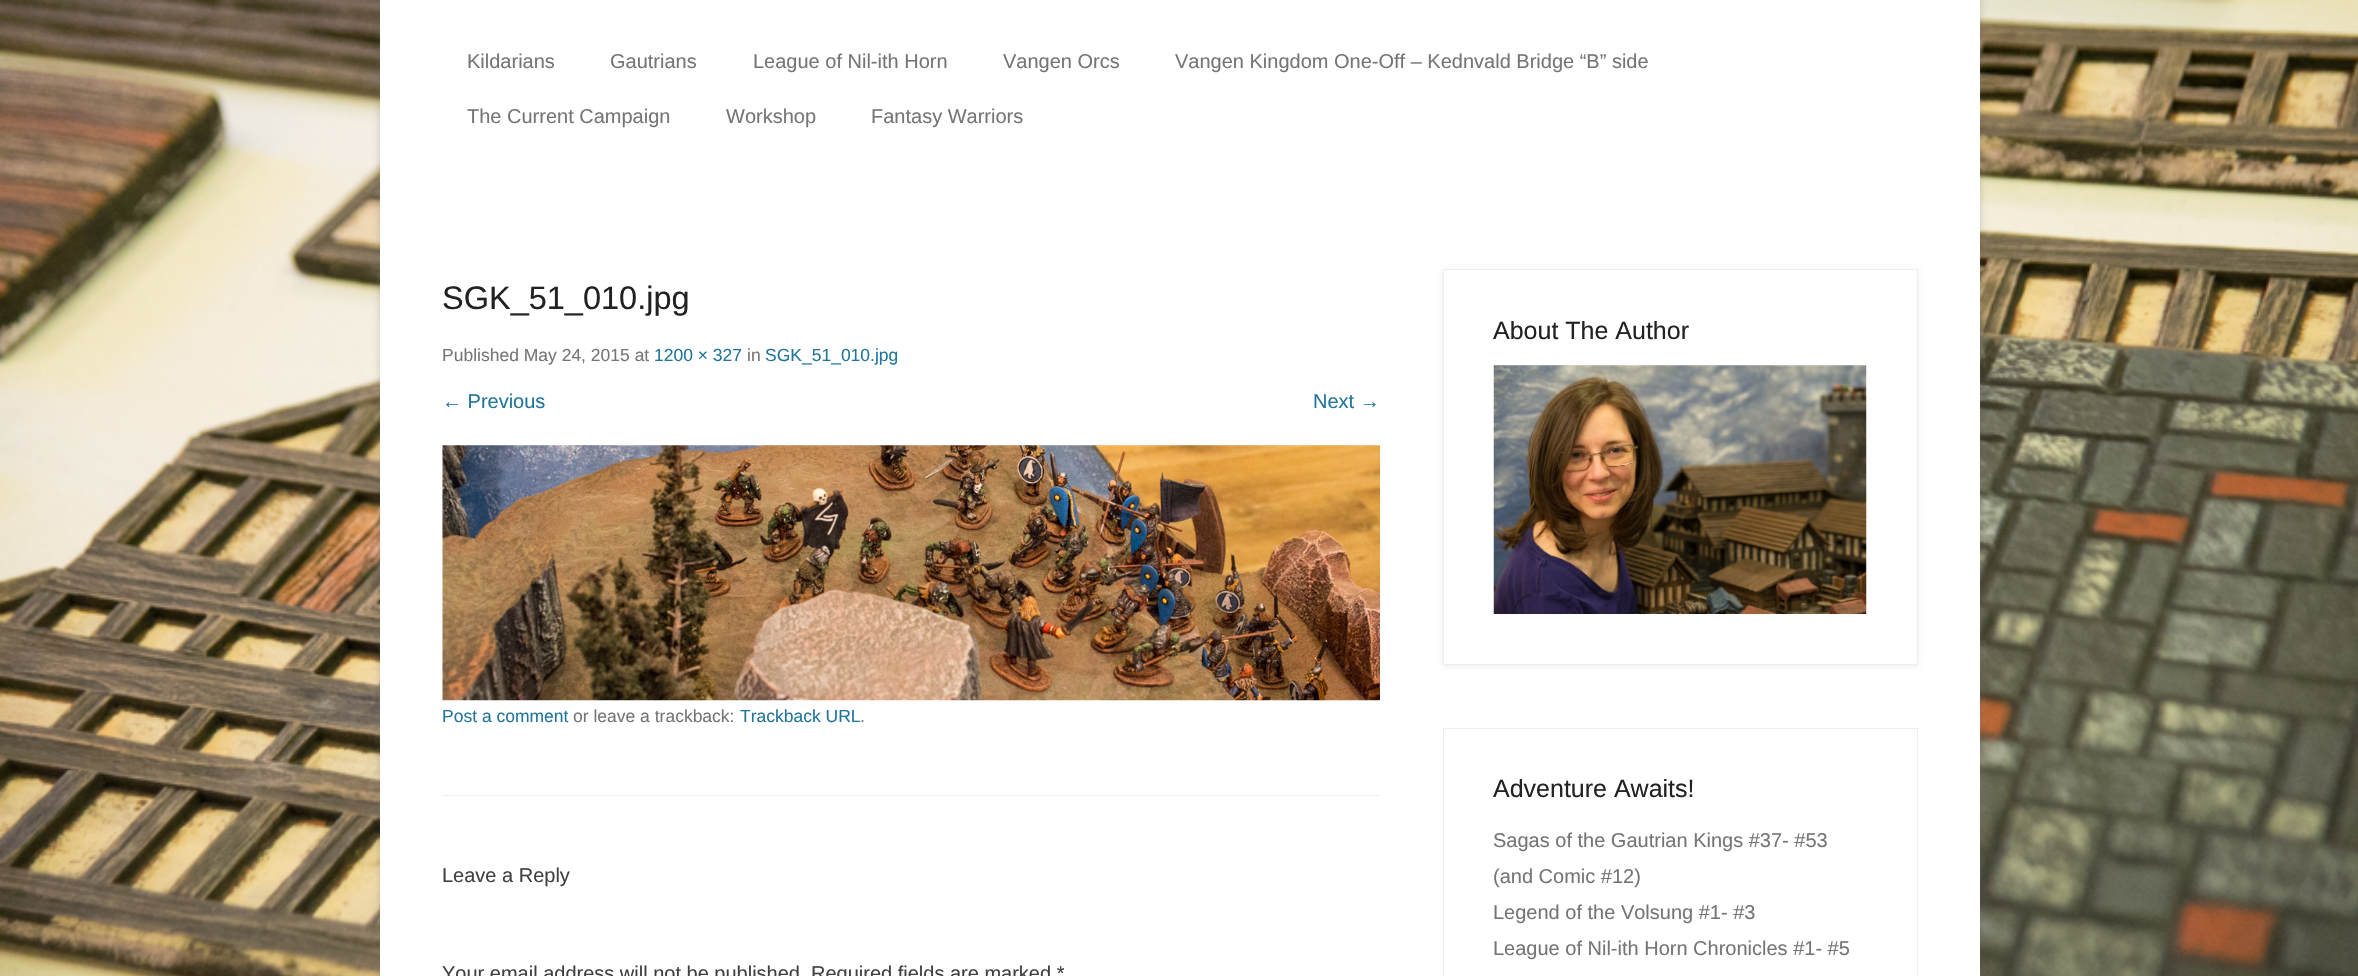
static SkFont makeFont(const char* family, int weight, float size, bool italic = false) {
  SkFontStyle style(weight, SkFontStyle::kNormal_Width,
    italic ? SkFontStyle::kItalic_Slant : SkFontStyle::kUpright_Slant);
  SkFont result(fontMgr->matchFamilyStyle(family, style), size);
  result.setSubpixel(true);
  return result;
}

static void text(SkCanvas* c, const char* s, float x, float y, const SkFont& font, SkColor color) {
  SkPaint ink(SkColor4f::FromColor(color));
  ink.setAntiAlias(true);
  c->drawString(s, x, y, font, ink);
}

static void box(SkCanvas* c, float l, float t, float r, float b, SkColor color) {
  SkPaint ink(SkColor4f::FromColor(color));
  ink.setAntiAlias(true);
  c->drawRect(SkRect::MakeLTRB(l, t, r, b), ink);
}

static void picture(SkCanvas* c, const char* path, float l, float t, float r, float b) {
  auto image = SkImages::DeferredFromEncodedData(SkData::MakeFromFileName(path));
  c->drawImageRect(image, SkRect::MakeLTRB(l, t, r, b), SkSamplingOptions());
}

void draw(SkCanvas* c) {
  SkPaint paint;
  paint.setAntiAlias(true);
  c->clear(0xffffffff);
  picture(c, "img_01.png", 0, 0, 2358, 976);
  paint.setColor(0x4d646464);
  paint.setMaskFilter(SkMaskFilter::MakeBlur(kNormal_SkBlurStyle, 4));
  c->drawRect(SkRect::MakeLTRB(380, -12, 1980, 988), paint);
  paint.setMaskFilter(nullptr);
  box(c, 380, 0, 1980, 976, 0xffffffff);
  SkFont face1 = makeFont("Liberation Sans", 400, 20);
  text(c, "Kildarians", 467, 68, face1, 0xff757575);
  text(c, "Gautrians", 610, 68, face1, 0xff757575);
  text(c, "League of Nil-ith Horn", 753, 68, face1, 0xff757575);
  text(c, "Vangen Orcs", 1003, 68, face1, 0xff757575);
  text(c, "Vangen Kingdom One-Off – Kednvald Bridge “B” side", 1175, 68, face1, 0xff757575);
  text(c, "The Current Campaign", 467, 123, face1, 0xff757575);
  text(c, "Workshop", 726, 123, face1, 0xff757575);
  text(c, "Fantasy Warriors", 871, 123, face1, 0xff757575);
  box(c, 443, 795, 1380, 796, 0xffeeeeee);
  SkFont face2 = makeFont("Liberation Sans", 400, 32.5f);
  text(c, "SGK_51_010.jpg", 442, 309, face2, 0xff222222);
  SkFont face3 = makeFont("Liberation Sans", 400, 17.5f);
  text(c, "Published May 24, 2015 at", 442, 361, face3, 0xff757575);
  text(c, "1200 × 327", 654, 361, face3, 0xff21759b);
  text(c, "in", 747, 361, face3, 0xff757575);
  text(c, "SGK_51_010.jpg", 765, 361, face3, 0xff21759b);
  text(c, "← Previous", 442, 408, face1, 0xff21759b);
  text(c, "Next →", 1313, 408, face1, 0xff21759b);
  picture(c, "img_02.png", 442, 445, 1380, 701);
  text(c, "Post a comment", 442, 722, face3, 0xff21759b);
  text(c, "or leave a trackback:", 573, 722, face3, 0xff757575);
  text(c, "Trackback URL", 740, 722, face3, 0xff21759b);
  text(c, ".", 860, 722, face3, 0xff757575);
  text(c, "Leave a Reply", 442, 882, face1, 0xff404040);
  text(c, "Your email address will not be published", 442, 980, face1, 0xff404040);
  text(c, "Required fields are marked *", 811, 980, face1, 0xff404040);
  c->save();
  c->clipPath(SkPathBuilder(SkPathFillType::kEvenOdd).moveTo(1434, 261).lineTo(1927, 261).lineTo(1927, 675).lineTo(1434, 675).close().moveTo(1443, 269).lineTo(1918, 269).lineTo(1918, 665).lineTo(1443, 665).close().detach(), true);
  paint.setColor(0x12000000);
  paint.setMaskFilter(SkMaskFilter::MakeBlur(kNormal_SkBlurStyle, 2.5f));
  c->drawRect(SkRect::MakeLTRB(1443, 270, 1918, 666), paint);
  paint.setMaskFilter(nullptr);
  c->restore();
  paint.setStyle(SkPaint::kStroke_Style);
  paint.setStrokeWidth(1);
  paint.setColor(0xffeeeeee);
  c->drawRect(SkRect::MakeLTRB(1443.5f, 269.5f, 1917.5f, 664.5f), paint);
  SkFont face4 = makeFont("Liberation Sans", 400, 25);
  text(c, "About The Author", 1493, 339, face4, 0xff222222);
  picture(c, "img_03.png", 1493, 365, 1867, 614);
  c->drawRect(SkRect::MakeLTRB(1443.5f, 728.5f, 1917.5f, 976.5f), paint);
  text(c, "Adventure Awaits!", 1493, 797, face4, 0xff222222);
  text(c, "Sagas of the Gautrian Kings #37- #53", 1493, 847, face1, 0xff757575);
  text(c, "(and Comic #12)", 1493, 883, face1, 0xff757575);
  text(c, "Legend of the Volsung #1- #3", 1493, 919, face1, 0xff757575);
  text(c, "League of Nil-ith Horn Chronicles #1- #5", 1493, 955, face1, 0xff757575);
}
